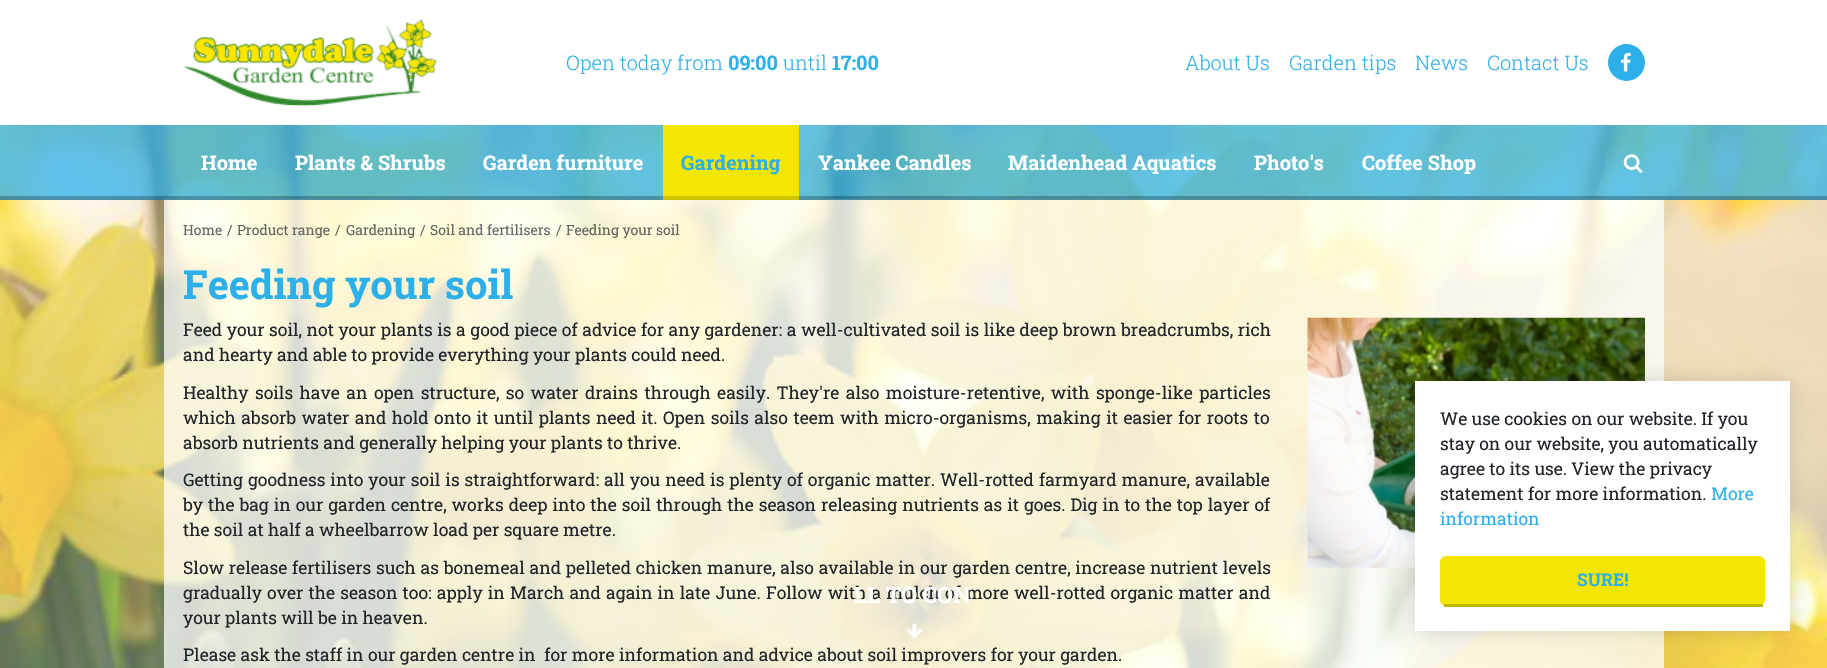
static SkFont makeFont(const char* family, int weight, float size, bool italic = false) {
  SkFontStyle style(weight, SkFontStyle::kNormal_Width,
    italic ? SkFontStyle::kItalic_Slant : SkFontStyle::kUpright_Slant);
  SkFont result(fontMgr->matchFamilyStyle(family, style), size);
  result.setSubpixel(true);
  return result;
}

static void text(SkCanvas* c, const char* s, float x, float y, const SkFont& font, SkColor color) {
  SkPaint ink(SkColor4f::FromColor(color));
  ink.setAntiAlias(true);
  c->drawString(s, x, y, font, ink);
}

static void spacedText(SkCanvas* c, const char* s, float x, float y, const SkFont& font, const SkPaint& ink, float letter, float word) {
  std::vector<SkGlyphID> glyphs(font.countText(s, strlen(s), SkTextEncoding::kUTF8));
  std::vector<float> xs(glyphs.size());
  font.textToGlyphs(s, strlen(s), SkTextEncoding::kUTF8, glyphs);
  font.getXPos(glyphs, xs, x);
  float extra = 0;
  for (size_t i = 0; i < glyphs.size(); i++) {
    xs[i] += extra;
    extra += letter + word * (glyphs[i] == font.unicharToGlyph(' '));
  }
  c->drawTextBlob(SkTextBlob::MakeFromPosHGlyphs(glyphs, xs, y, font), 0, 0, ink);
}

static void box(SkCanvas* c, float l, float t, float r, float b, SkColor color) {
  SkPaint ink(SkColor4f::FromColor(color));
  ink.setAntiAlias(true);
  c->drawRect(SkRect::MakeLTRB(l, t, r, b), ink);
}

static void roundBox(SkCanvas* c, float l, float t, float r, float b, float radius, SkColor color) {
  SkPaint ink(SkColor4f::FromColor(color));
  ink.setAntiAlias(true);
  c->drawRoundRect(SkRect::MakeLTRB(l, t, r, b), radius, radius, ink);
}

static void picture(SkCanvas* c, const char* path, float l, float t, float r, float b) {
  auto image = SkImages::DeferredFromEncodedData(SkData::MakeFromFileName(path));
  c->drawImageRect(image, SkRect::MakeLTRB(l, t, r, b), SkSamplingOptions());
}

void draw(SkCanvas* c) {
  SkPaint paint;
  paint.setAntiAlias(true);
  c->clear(0xffffffff);
  picture(c, "img_01.png", 0, 125, 1827, 668);
  box(c, 164, 261, 1664, 668, 0xbfffffff);
  picture(c, "img_02.png", 184, 19, 437, 107);
  SkFont face1 = makeFont("Roboto Slab", 300, 20);
  text(c, "Open today from", 566, 70, face1, 0xff2dafe9);
  SkFont face2 = makeFont("Roboto Slab", 700, 20);
  text(c, "09:00", 728, 70, face2, 0xff2dafe9);
  text(c, "until", 783, 70, face1, 0xff2dafe9);
  text(c, "17:00", 832, 70, face2, 0xff2dafe9);
  text(c, "About Us", 1185, 70, face1, 0xff2dafe9);
  text(c, "Garden tips", 1289, 70, face1, 0xff2dafe9);
  text(c, "News", 1415, 70, face1, 0xff2dafe9);
  text(c, "Contact Us", 1487, 70, face1, 0xff2dafe9);
  paint.setColor(0xff2dafe9);
  c->drawCircle(1626.5f, 62.5f, 18.5f, paint);
  picture(c, "img_03.png", 1621, 52, 1631, 72);
  box(c, 164, 199, 1664, 261, 0xbfffffff);
  box(c, 0, 125, 1827, 200, 0xbf2dafe9);
  box(c, 0, 196, 1827, 200, 0x40000000);
  text(c, "Home", 201, 170, face2, 0xffffffff);
  text(c, "Plants & Shrubs", 295, 170, face2, 0xffffffff);
  text(c, "Garden furniture", 483, 170, face2, 0xffffffff);
  box(c, 663, 125, 799, 196, 0xfff3e600);
  text(c, "Gardening", 681, 170, face2, 0xff2dafe9);
  box(c, 663, 196, 799, 200, 0xffcfc400);
  text(c, "Yankee Candles", 818, 170, face2, 0xffffffff);
  text(c, "Maidenhead Aquatics", 1008, 170, face2, 0xffffffff);
  text(c, "Photo's", 1254, 170, face2, 0xffffffff);
  text(c, "Coffee Shop", 1362, 170, face2, 0xffffffff);
  picture(c, "img_04.png", 1623, 154, 1643, 173);
  SkFont face3 = makeFont("Roboto Slab", 700, 40);
  text(c, "Feeding your soil", 183, 299, face3, 0xff2dafe9);
  SkFont face4 = makeFont("Roboto Slab", 400, 17.5f);
  paint.setColor(0xff212529);
  spacedText(c, "Feed your soil, not your plants is a good piece of advice for any gardener: a well-cultivated soil is like deep brown breadcrumbs, rich", 183, 336, face4, paint, 0, 0.2f);
  text(c, "and hearty and able to provide everything your plants could need.", 183, 361, face4, 0xff212529);
  picture(c, "img_05.png", 1307, 317, 1645, 568);
  spacedText(c, "Healthy soils have an open structure, so water drains through easily. They're also moisture-retentive, with sponge-like particles", 183, 399, face4, paint, 0, 2.1f);
  spacedText(c, "which absorb water and hold onto it until plants need it. Open soils also teem with micro-organisms, making it easier for roots to", 183, 424, face4, paint, 0, 1.1f);
  text(c, "absorb nutrients and generally helping your plants to thrive.", 183, 449, face4, 0xff212529);
  spacedText(c, "Getting goodness into your soil is straightforward: all you need is plenty of organic matter. Well-rotted farmyard manure, available", 183, 486, face4, paint, 0, 0.6f);
  spacedText(c, "by the bag in our garden centre, works deep into the soil through the season releasing nutrients as it goes. Dig in to the top layer of", 183, 511, face4, paint, 0, 0.6f);
  text(c, "the soil at half a wheelbarrow load per square metre.", 183, 536, face4, 0xff212529);
  spacedText(c, "Slow release fertilisers such as bonemeal and pelleted chicken manure, also available in our garden centre, increase nutrient levels", 183, 574, face4, paint, 0, 0.4f);
  spacedText(c, "gradually over the season too: apply in March and again in late June. Follow with a mulch of more well-rotted organic matter and", 183, 599, face4, paint, 0, 0.8f);
  text(c, "your plants will be in heaven.", 183, 624, face4, 0xff212529);
  text(c, "Please ask the staff in our garden centre in  for more information and advice about soil improvers for your garden.", 183, 661, face4, 0xff212529);
  SkFont face5 = makeFont("Roboto Slab", 400, 14);
  text(c, "Home", 183, 235, face5, 0xff636665);
  text(c, "/", 227, 235, face5, 0xff636665);
  text(c, "Product range", 237, 235, face5, 0xff63645e);
  text(c, "/", 335, 235, face5, 0xff63645e);
  text(c, "Gardening", 346, 235, face5, 0xff63645e);
  text(c, "/", 420, 235, face5, 0xff63645e);
  text(c, "Soil and fertilisers", 430, 235, face5, 0xff636665);
  text(c, "/", 556, 235, face5, 0xff636665);
  text(c, "Feeding your soil", 566, 235, face5, 0xff63645e);
  SkFont face6 = makeFont("Roboto Slab", 700, 22.5f);
  text(c, "LL TO CON", 854, 603, face6, 0xffffffff);
  picture(c, "img_06.png", 906, 623, 922, 639);
  paint.setColor(0x26000000);
  paint.setMaskFilter(SkMaskFilter::MakeBlur(kNormal_SkBlurStyle, 9.5f));
  c->drawRect(SkRect::MakeLTRB(1415, 381, 1790, 631), paint);
  paint.setMaskFilter(nullptr);
  box(c, 1415, 381, 1790, 631, 0xffffffff);
  text(c, "We use cookies on our website. If you", 1440, 425, face4, 0xff212529);
  text(c, "stay on our website, you automatically", 1440, 450, face4, 0xff212529);
  text(c, "agree to its use. View the privacy", 1440, 475, face4, 0xff212529);
  text(c, "statement for more information.", 1440, 500, face4, 0xff212529);
  text(c, "More", 1711, 500, face4, 0xff2dafe9);
  text(c, "information", 1440, 525, face4, 0xff2dafe9);
  roundBox(c, 1440, 556, 1765, 606, 6, 0xfff3e600);
  box(c, 1444, 604, 1763, 607, 0xffc0b600);
  SkFont face7 = makeFont("Roboto Slab", 700, 17.5f);
  text(c, "SURE!", 1577, 586, face7, 0xff2dafe9);
}
